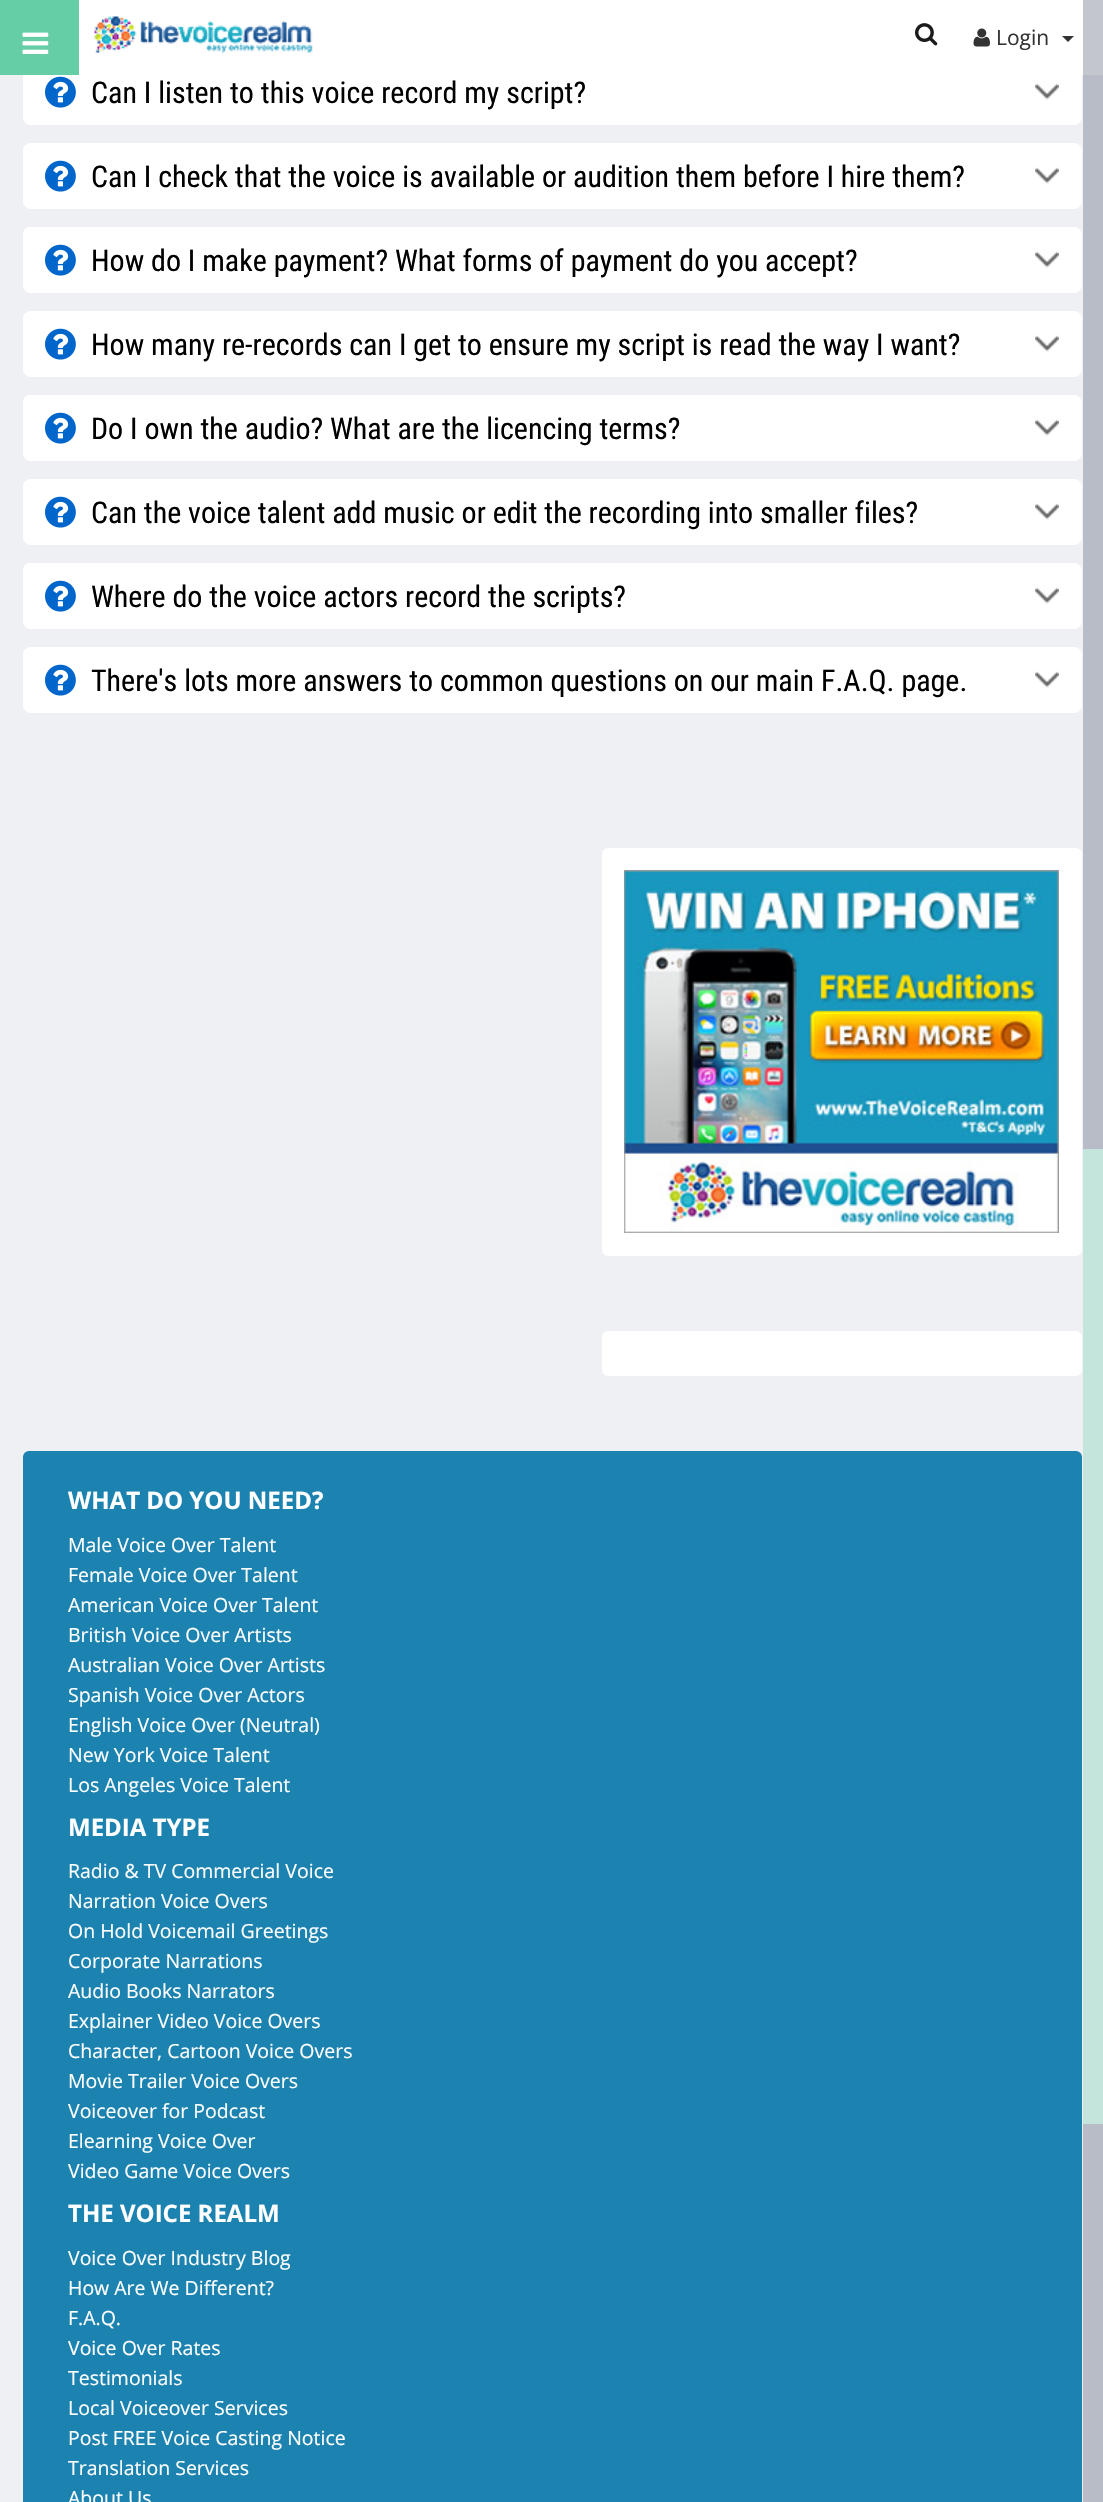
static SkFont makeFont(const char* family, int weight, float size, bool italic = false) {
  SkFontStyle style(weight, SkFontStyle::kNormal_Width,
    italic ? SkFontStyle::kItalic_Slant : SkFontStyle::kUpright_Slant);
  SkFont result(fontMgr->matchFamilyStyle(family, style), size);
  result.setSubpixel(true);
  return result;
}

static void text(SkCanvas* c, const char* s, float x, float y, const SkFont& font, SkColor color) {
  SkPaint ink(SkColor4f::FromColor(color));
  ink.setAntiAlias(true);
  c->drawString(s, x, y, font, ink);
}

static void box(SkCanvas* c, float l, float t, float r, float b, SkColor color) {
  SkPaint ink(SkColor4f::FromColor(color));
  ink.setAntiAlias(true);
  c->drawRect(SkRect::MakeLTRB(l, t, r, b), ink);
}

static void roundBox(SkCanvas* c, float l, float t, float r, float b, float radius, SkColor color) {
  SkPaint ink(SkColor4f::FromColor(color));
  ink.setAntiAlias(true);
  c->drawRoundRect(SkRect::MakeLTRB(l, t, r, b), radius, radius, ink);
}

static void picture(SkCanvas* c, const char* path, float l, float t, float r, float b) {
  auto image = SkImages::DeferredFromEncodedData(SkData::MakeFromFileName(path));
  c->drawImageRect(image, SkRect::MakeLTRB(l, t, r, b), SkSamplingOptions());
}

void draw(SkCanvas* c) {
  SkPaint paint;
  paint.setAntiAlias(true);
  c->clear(0xffeff0f4);
  box(c, 1083, 75, 1103, 2502, 0xffb8bcc6);
  roundBox(c, 23, 59, 1082, 125, 8, 0xffffffff);
  roundBox(c, 23, 59, 1044, 125, 8, 0xffffffff);
  box(c, 79, 0, 1083, 75, 0xffffffff);
  box(c, 1083, 0, 1103, 75, 0xffc3c7cd);
  box(c, 0, 0, 79, 75, 0xff65cea7);
  picture(c, "img_01.png", 22, 32, 49, 54);
  picture(c, "img_02.png", 94, 16, 313, 53);
  picture(c, "img_03.png", 915, 23, 938, 46);
  picture(c, "img_04.png", 973, 28, 990, 47);
  SkFont face1 = makeFont("Open Sans", 400, 21);
  text(c, "Login", 996, 45, face1, 0xff333333);
  paint.setColor(0xff333333);
  c->drawPath(SkPathBuilder().moveTo(1062, 36).lineTo(1074, 36).lineTo(1068, 42).close().detach(), paint);
  picture(c, "img_05.png", 45, 76, 76, 108);
  SkFont face2 = makeFont("Roboto Condensed", 400, 30);
  text(c, "Can I listen to this voice record my script?", 91, 103, face2, 0xff000000);
  picture(c, "img_06.png", 1035, 83, 1059, 100);
  roundBox(c, 23, 143, 1082, 209, 8, 0xffffffff);
  roundBox(c, 23, 143, 1044, 209, 8, 0xffffffff);
  picture(c, "img_05.png", 45, 160, 76, 192);
  text(c, "Can I check that the voice is available or audition them before I hire them?", 91, 187, face2, 0xff000000);
  picture(c, "img_06.png", 1035, 167, 1059, 184);
  roundBox(c, 23, 227, 1082, 293, 8, 0xffffffff);
  roundBox(c, 23, 227, 1044, 293, 8, 0xffffffff);
  picture(c, "img_05.png", 45, 244, 76, 276);
  text(c, "How do I make payment? What forms of payment do you accept?", 91, 271, face2, 0xff000000);
  picture(c, "img_06.png", 1035, 251, 1059, 268);
  roundBox(c, 23, 311, 1082, 377, 8, 0xffffffff);
  roundBox(c, 23, 311, 1044, 377, 8, 0xffffffff);
  picture(c, "img_05.png", 45, 328, 76, 360);
  text(c, "How many re-records can I get to ensure my script is read the way I want?", 91, 355, face2, 0xff000000);
  picture(c, "img_06.png", 1035, 335, 1059, 352);
  roundBox(c, 23, 395, 1082, 461, 8, 0xffffffff);
  roundBox(c, 23, 395, 1044, 461, 8, 0xffffffff);
  picture(c, "img_05.png", 45, 412, 76, 444);
  text(c, "Do I own the audio? What are the licencing terms?", 91, 439, face2, 0xff000000);
  picture(c, "img_06.png", 1035, 419, 1059, 436);
  roundBox(c, 23, 479, 1082, 545, 8, 0xffffffff);
  roundBox(c, 23, 479, 1044, 545, 8, 0xffffffff);
  picture(c, "img_05.png", 45, 496, 76, 528);
  text(c, "Can the voice talent add music or edit the recording into smaller files?", 91, 523, face2, 0xff000000);
  picture(c, "img_06.png", 1035, 503, 1059, 520);
  roundBox(c, 23, 563, 1082, 629, 8, 0xffffffff);
  roundBox(c, 23, 563, 1044, 629, 8, 0xffffffff);
  picture(c, "img_05.png", 45, 580, 76, 612);
  text(c, "Where do the voice actors record the scripts?", 91, 607, face2, 0xff000000);
  picture(c, "img_06.png", 1035, 587, 1059, 604);
  roundBox(c, 23, 647, 1082, 713, 8, 0xffffffff);
  roundBox(c, 23, 647, 1044, 713, 8, 0xffffffff);
  picture(c, "img_05.png", 45, 664, 76, 696);
  text(c, "There's lots more answers to common questions on our main F.A.Q. page.", 91, 691, face2, 0xff000000);
  picture(c, "img_06.png", 1035, 671, 1059, 688);
  roundBox(c, 602, 848, 1082, 1256, 6, 0xffffffff);
  picture(c, "img_07.png", 624, 870, 1059, 1233);
  roundBox(c, 602, 1331, 1082, 1376, 6, 0xffffffff);
  roundBox(c, 23, 1451, 1082, 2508, 6, 0xff1c83b1);
  SkFont face3 = makeFont("Open Sans", 700, 24);
  text(c, "WHAT DO YOU NEED?", 68, 1509, face3, 0xffffffff);
  SkFont face4 = makeFont("Open Sans", 400, 19.5f);
  text(c, "Male Voice Over Talent", 68, 1552, face4, 0xffffffff);
  text(c, "Female Voice Over Talent", 68, 1582, face4, 0xffffffff);
  text(c, "American Voice Over Talent", 68, 1612, face4, 0xffffffff);
  text(c, "British Voice Over Artists", 68, 1642, face4, 0xffffffff);
  text(c, "Australian Voice Over Artists", 68, 1672, face4, 0xffffffff);
  text(c, "Spanish Voice Over Actors", 68, 1702, face4, 0xffffffff);
  text(c, "English Voice Over (Neutral)", 68, 1732, face4, 0xffffffff);
  text(c, "New York Voice Talent", 68, 1762, face4, 0xffffffff);
  text(c, "Los Angeles Voice Talent", 68, 1792, face4, 0xffffffff);
  text(c, "MEDIA TYPE", 68, 1836, face3, 0xffffffff);
  text(c, "Radio & TV Commercial Voice", 68, 1878, face4, 0xffffffff);
  text(c, "Narration Voice Overs", 68, 1908, face4, 0xffffffff);
  text(c, "On Hold Voicemail Greetings", 68, 1938, face4, 0xffffffff);
  text(c, "Corporate Narrations", 68, 1968, face4, 0xffffffff);
  text(c, "Audio Books Narrators", 68, 1998, face4, 0xffffffff);
  text(c, "Explainer Video Voice Overs", 68, 2028, face4, 0xffffffff);
  text(c, "Character, Cartoon Voice Overs", 68, 2058, face4, 0xffffffff);
  text(c, "Movie Trailer Voice Overs", 68, 2088, face4, 0xffffffff);
  text(c, "Voiceover for Podcast", 68, 2118, face4, 0xffffffff);
  text(c, "Elearning Voice Over", 68, 2148, face4, 0xffffffff);
  text(c, "Video Game Voice Overs", 68, 2178, face4, 0xffffffff);
  text(c, "THE VOICE REALM", 68, 2222, face3, 0xffffffff);
  text(c, "Voice Over Industry Blog", 68, 2265, face4, 0xffffffff);
  text(c, "How Are We Different?", 68, 2295, face4, 0xffffffff);
  text(c, "F.A.Q.", 68, 2325, face4, 0xffffffff);
  text(c, "Voice Over Rates", 68, 2355, face4, 0xffffffff);
  text(c, "Testimonials", 68, 2385, face4, 0xffffffff);
  text(c, "Local Voiceover Services", 68, 2415, face4, 0xffffffff);
  text(c, "Post FREE Voice Casting Notice", 68, 2445, face4, 0xffffffff);
  text(c, "Translation Services", 68, 2475, face4, 0xffffffff);
  text(c, "About Us", 68, 2505, face4, 0xffffffff);
  box(c, 1083, 1149, 1103, 2124, 0xffc3e5dc);
}
